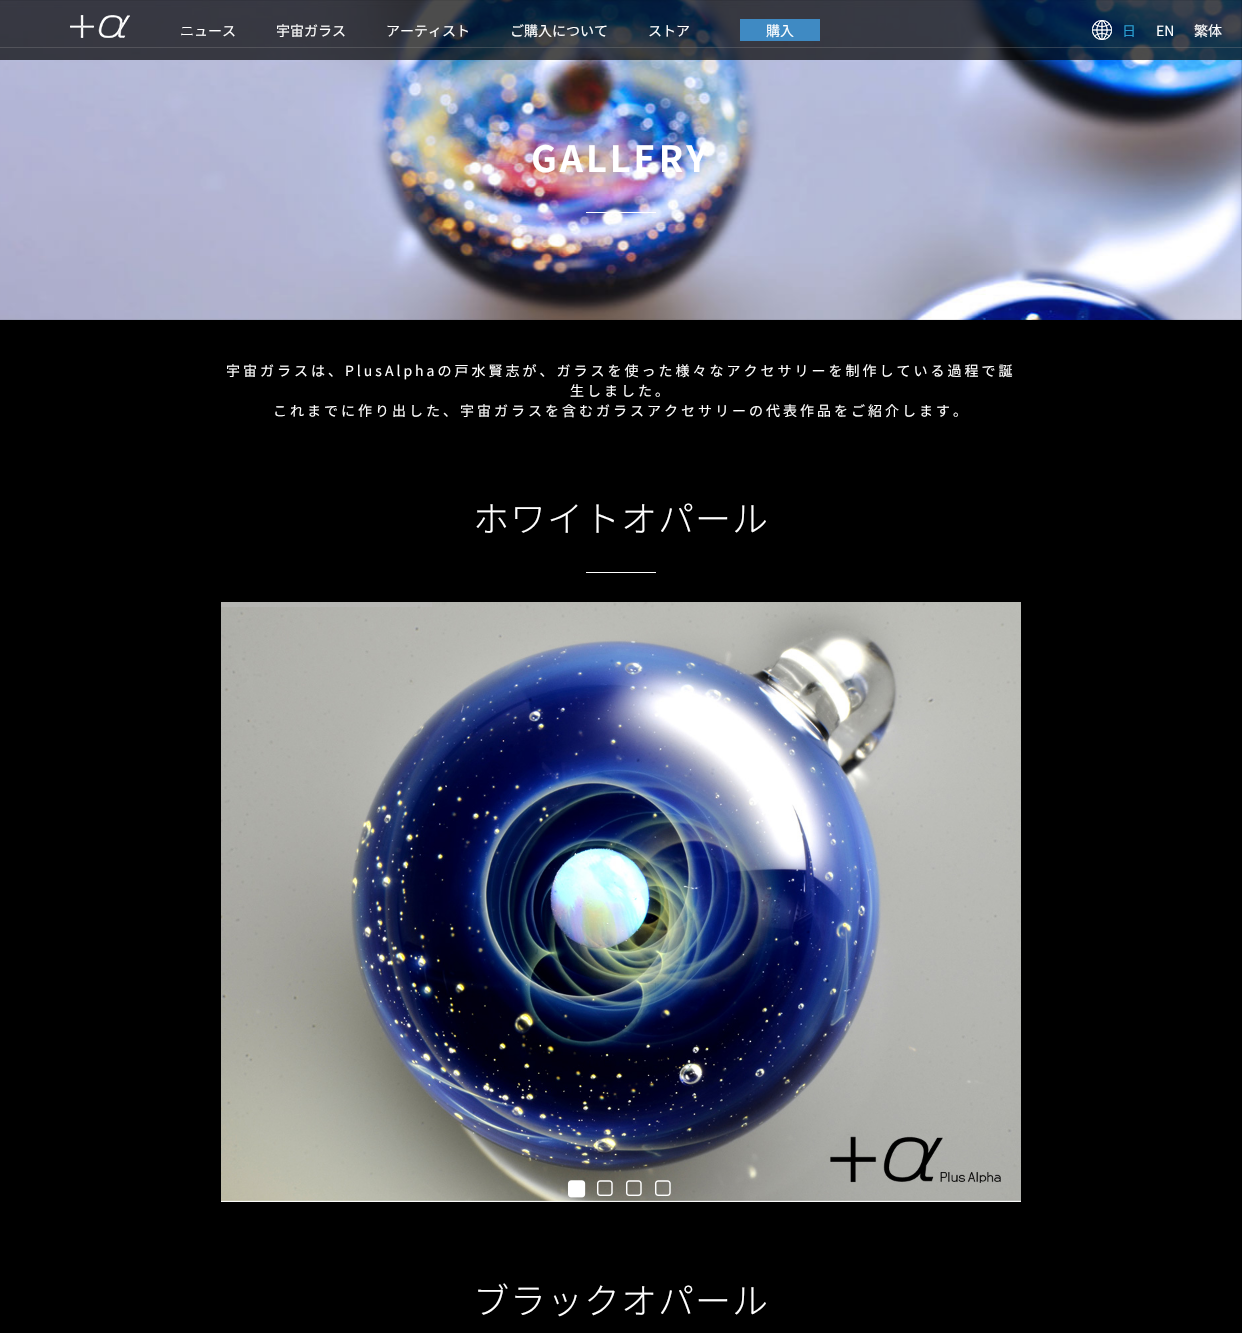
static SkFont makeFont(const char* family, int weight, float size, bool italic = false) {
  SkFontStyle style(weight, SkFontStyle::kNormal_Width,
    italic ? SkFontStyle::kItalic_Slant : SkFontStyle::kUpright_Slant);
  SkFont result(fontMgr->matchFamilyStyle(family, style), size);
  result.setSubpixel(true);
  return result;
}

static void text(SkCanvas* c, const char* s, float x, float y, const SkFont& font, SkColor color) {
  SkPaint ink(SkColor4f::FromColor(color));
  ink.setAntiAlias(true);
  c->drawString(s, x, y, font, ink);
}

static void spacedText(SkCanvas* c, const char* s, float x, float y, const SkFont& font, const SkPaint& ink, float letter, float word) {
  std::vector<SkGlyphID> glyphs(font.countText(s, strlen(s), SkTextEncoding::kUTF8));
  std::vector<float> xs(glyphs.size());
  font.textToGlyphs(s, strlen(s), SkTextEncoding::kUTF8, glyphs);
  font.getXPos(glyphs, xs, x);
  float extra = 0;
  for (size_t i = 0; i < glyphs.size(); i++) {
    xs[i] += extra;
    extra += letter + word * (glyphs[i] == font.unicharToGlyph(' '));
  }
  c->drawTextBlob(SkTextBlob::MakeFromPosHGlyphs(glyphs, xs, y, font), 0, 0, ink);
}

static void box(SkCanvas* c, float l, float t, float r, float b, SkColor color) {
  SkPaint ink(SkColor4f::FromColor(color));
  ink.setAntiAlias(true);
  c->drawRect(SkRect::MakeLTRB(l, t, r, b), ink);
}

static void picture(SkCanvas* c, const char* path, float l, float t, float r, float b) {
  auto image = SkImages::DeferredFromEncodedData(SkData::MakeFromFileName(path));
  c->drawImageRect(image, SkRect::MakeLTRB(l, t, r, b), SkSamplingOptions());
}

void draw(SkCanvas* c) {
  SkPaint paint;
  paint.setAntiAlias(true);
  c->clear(0xff000000);
  picture(c, "img_03.png", 0, 0, 1242, 320);
  box(c, 0, 0, 1242, 60, 0xb3000000);
  picture(c, "img_01.png", 70, 15, 130, 38);
  SkFont face1 = makeFont("Noto Sans JP", 400, 14);
  text(c, "ニュース", 180, 36, face1, 0xffffffff);
  text(c, "宇宙ガラス", 276, 36, face1, 0xffffffff);
  text(c, "アーティスト", 386, 36, face1, 0xffffffff);
  text(c, "ご購入について", 510, 36, face1, 0xffffffff);
  text(c, "ストア", 648, 36, face1, 0xffffffff);
  box(c, 740, 19, 820, 41, 0xff3f8ac3);
  text(c, "購入", 766, 36, face1, 0xffffffff);
  picture(c, "img_02.png", 1092, 20, 1112, 40);
  text(c, "日", 1122, 36, face1, 0xff299ed0);
  text(c, "EN", 1156, 36, face1, 0xffffffff);
  text(c, "繁体", 1194, 36, face1, 0xffffffff);
  box(c, 0, 47, 1242, 48, 0x4d919191);
  SkFont face2 = makeFont("Noto Sans JP", 700, 36);
  paint.setColor(0xffffffff);
  spacedText(c, "GALLERY", 531, 172, face2, paint, 3, 0);
  box(c, 586, 212, 656, 213, 0xffffffff);
  spacedText(c, "宇宙ガラスは、PlusAlphaの戸水賢志が、ガラスを使った様々なアクセサリーを制作している過程で誕", 226, 376, face1, paint, 3, 0);
  spacedText(c, "生しました。", 570, 396, face1, paint, 3, 0);
  spacedText(c, "これまでに作り出した、宇宙ガラスを含むガラスアクセサリーの代表作品をご紹介します。", 273, 416, face1, paint, 3, 0);
  SkFont face3 = makeFont("Noto Sans JP", 300, 36);
  spacedText(c, "ホワイトオパール", 473, 532, face3, paint, 1, 0);
  box(c, 586, 572, 656, 573, 0xffffffff);
  picture(c, "img_04.png", 221, 602, 1021, 1202);
  box(c, 221, 602, 432, 607, 0x80bbbbbb);
  picture(c, "img_05.png", 568, 1180, 586, 1198);
  picture(c, "img_06.png", 597, 1180, 613, 1196);
  picture(c, "img_07.png", 626, 1180, 642, 1196);
  picture(c, "img_08.png", 655, 1180, 671, 1196);
  spacedText(c, "ブラックオパール", 473, 1314, face3, paint, 1, 0);
}
